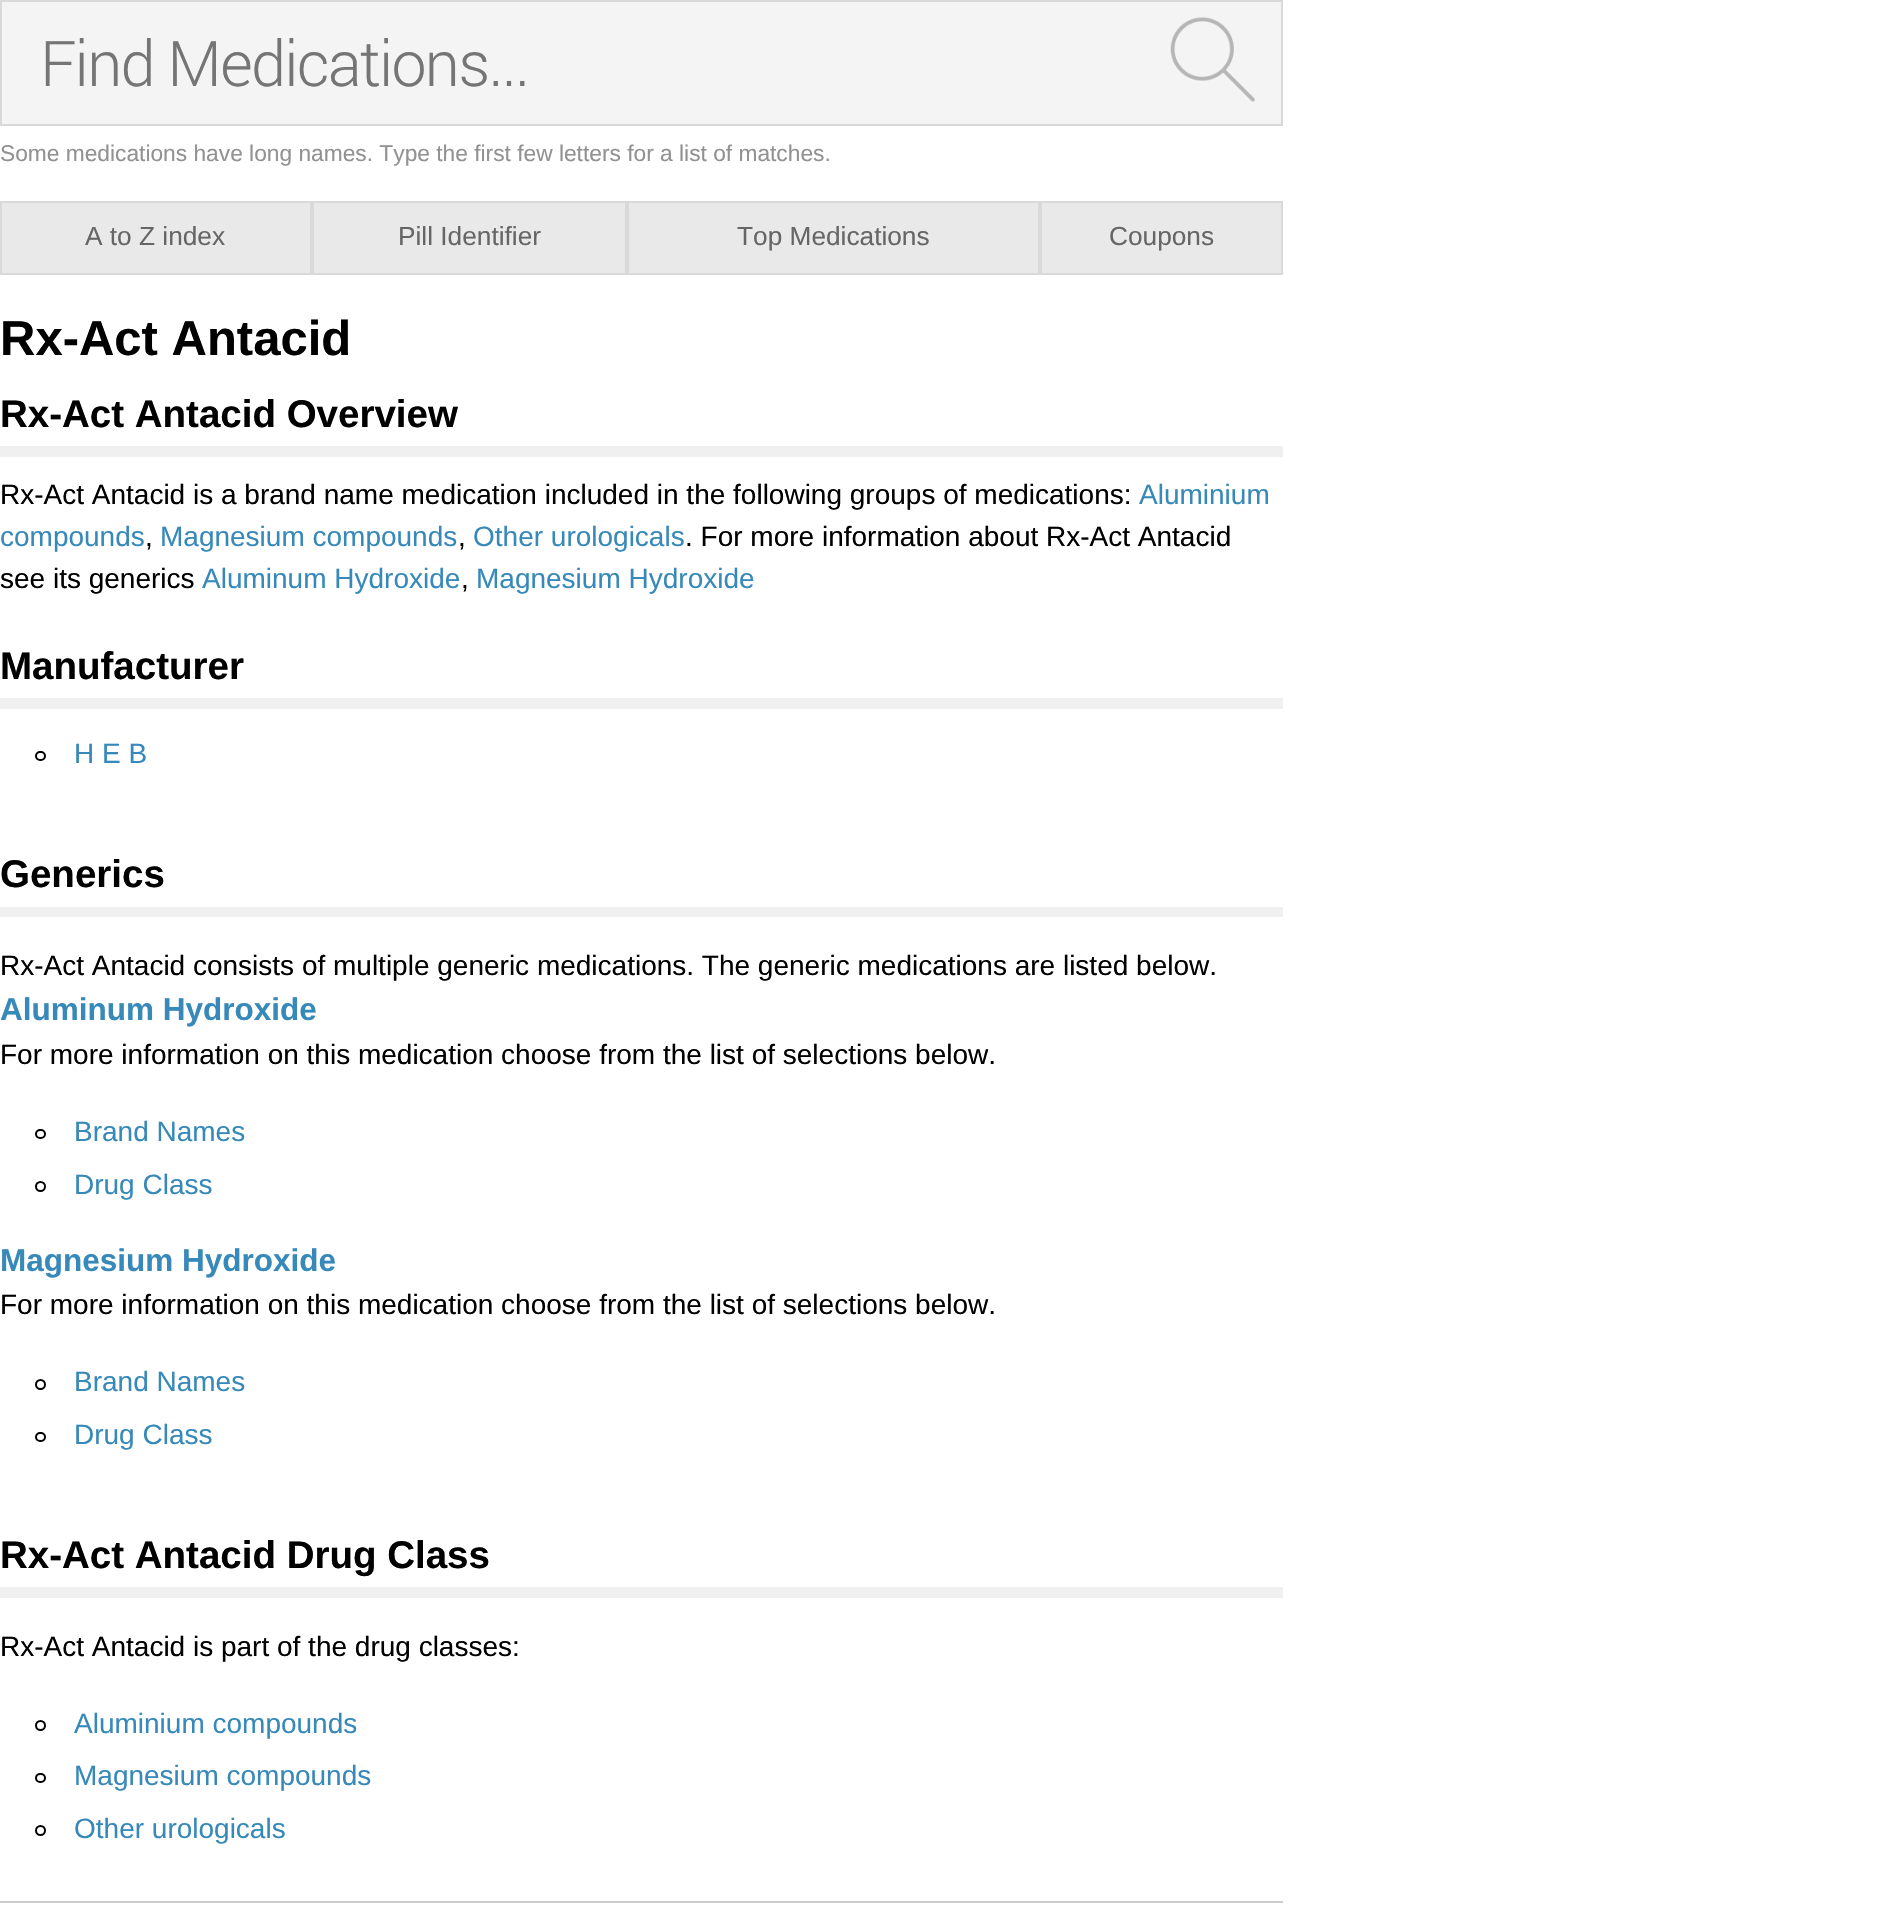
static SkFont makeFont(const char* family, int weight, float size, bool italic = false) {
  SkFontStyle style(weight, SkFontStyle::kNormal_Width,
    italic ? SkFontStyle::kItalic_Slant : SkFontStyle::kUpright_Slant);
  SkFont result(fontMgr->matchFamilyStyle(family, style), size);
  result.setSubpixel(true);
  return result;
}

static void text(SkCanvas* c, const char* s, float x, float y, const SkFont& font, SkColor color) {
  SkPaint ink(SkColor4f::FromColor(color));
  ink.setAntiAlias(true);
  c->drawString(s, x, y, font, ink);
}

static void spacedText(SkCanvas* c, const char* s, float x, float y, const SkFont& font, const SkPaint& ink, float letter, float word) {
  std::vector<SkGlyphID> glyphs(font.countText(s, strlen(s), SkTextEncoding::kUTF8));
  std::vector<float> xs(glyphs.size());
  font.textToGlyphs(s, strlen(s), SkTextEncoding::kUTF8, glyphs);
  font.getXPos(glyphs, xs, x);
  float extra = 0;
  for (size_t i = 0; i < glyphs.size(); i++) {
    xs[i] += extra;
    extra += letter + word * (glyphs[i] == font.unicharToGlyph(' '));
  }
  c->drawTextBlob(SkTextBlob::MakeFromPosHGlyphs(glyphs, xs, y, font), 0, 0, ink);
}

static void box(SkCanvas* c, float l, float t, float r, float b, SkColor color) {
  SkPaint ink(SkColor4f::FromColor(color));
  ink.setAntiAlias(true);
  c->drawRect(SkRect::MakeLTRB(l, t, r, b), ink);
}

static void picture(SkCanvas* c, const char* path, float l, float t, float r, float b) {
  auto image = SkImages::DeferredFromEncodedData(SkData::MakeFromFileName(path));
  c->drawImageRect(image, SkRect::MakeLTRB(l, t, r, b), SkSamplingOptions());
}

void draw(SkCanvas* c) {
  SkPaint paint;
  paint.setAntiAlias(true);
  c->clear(0xffffffff);
  paint.setColor(0xfff4f4f4);
  c->drawRect(SkRect::MakeLTRB(1, 1, 1282, 125), paint);
  paint.setStyle(SkPaint::kStroke_Style);
  paint.setStrokeWidth(2);
  paint.setColor(0xffd9d9d9);
  c->drawRect(SkRect::MakeLTRB(1, 1, 1282, 125), paint);
  SkFont face1 = makeFont("Roboto", 300, 63);
  paint.setStyle(SkPaint::kFill_Style);
  paint.setColor(0xff757575);
  spacedText(c, "Find Medications...", 40, 86, face1, paint, -1.75f, 0);
  picture(c, "img_01.png", 1170, 17, 1255, 102);
  SkFont face2 = makeFont("Liberation Sans", 400, 22.75f);
  text(c, "Some medications have long names. Type the first few letters for a list of matches.", 0, 161, face2, 0xff929292);
  paint.setColor(0xffe9e9e9);
  c->drawRect(SkRect::MakeLTRB(1, 202, 311, 274), paint);
  paint.setStyle(SkPaint::kStroke_Style);
  paint.setColor(0xffd9d9d9);
  c->drawRect(SkRect::MakeLTRB(1, 202, 311, 274), paint);
  SkFont face3 = makeFont("Liberation Sans", 400, 26.25f);
  text(c, "A to Z index", 85, 245, face3, 0xff666666);
  paint.setStyle(SkPaint::kFill_Style);
  paint.setColor(0xffe9e9e9);
  c->drawRect(SkRect::MakeLTRB(313, 202, 626, 274), paint);
  paint.setStyle(SkPaint::kStroke_Style);
  paint.setColor(0xffd9d9d9);
  c->drawRect(SkRect::MakeLTRB(313, 202, 626, 274), paint);
  text(c, "Pill Identifier", 398, 245, face3, 0xff666666);
  paint.setStyle(SkPaint::kFill_Style);
  paint.setColor(0xffe9e9e9);
  c->drawRect(SkRect::MakeLTRB(628, 202, 1039, 274), paint);
  paint.setStyle(SkPaint::kStroke_Style);
  paint.setColor(0xffd9d9d9);
  c->drawRect(SkRect::MakeLTRB(628, 202, 1039, 274), paint);
  text(c, "Top Medications", 737, 245, face3, 0xff666666);
  paint.setStyle(SkPaint::kFill_Style);
  paint.setColor(0xffe9e9e9);
  c->drawRect(SkRect::MakeLTRB(1041, 202, 1282, 274), paint);
  paint.setStyle(SkPaint::kStroke_Style);
  paint.setColor(0xffd9d9d9);
  c->drawRect(SkRect::MakeLTRB(1041, 202, 1282, 274), paint);
  text(c, "Coupons", 1109, 245, face3, 0xff666666);
  SkFont face4 = makeFont("Liberation Sans", 700, 49);
  text(c, "Rx-Act Antacid", 0, 355, face4, 0xff000000);
  box(c, 0, 446, 1283, 457, 0xfff0f0f0);
  SkFont face5 = makeFont("Liberation Sans", 700, 38.5f);
  text(c, "Rx-Act Antacid Overview", 0, 427, face5, 0xff000000);
  SkFont face6 = makeFont("Liberation Sans", 400, 28);
  text(c, "Rx-Act Antacid is a brand name medication included in the following groups of medications:", 0, 504, face6, 0xff000000);
  text(c, "Aluminium", 1139, 504, face6, 0xff3789b9);
  text(c, "compounds", 0, 546, face6, 0xff3789b9);
  text(c, ",", 145, 546, face6, 0xff000000);
  text(c, "Magnesium compounds", 160, 546, face6, 0xff3789b9);
  text(c, ",", 458, 546, face6, 0xff000000);
  text(c, "Other urologicals", 473, 546, face6, 0xff3789b9);
  text(c, ". For more information about Rx-Act Antacid", 685, 546, face6, 0xff000000);
  text(c, "see its generics", 0, 588, face6, 0xff000000);
  text(c, "Aluminum Hydroxide", 202, 588, face6, 0xff3789b9);
  text(c, ",", 461, 588, face6, 0xff000000);
  text(c, "Magnesium Hydroxide", 476, 588, face6, 0xff3789b9);
  box(c, 0, 698, 1283, 709, 0xfff0f0f0);
  text(c, "Manufacturer", 0, 679, face5, 0xff000000);
  paint.setColor(0xff000000);
  c->drawRoundRect(SkRect::MakeLTRB(36, 752, 45, 760), 4, 4, paint);
  text(c, "H E B", 74, 763, face6, 0xff3789b9);
  box(c, 0, 907, 1283, 917, 0xfff0f0f0);
  text(c, "Generics", 0, 887, face5, 0xff000000);
  text(c, "Rx-Act Antacid consists of multiple generic medications. The generic medications are listed below.", 0, 975, face6, 0xff000000);
  SkFont face7 = makeFont("Liberation Sans", 700, 31.5f);
  text(c, "Aluminum Hydroxide", 0, 1020, face7, 0xff3789b9);
  text(c, "For more information on this medication choose from the list of selections below.", 0, 1064, face6, 0xff000000);
  c->drawRoundRect(SkRect::MakeLTRB(36, 1130, 45, 1138), 4, 4, paint);
  text(c, "Brand Names", 74, 1141, face6, 0xff3789b9);
  c->drawCircle(40.5f, 1186.5f, 4.5f, paint);
  text(c, "Drug Class", 74, 1194, face6, 0xff3789b9);
  text(c, "Magnesium Hydroxide", 0, 1271, face7, 0xff3789b9);
  text(c, "For more information on this medication choose from the list of selections below.", 0, 1314, face6, 0xff000000);
  c->drawCircle(40.5f, 1384.5f, 4.5f, paint);
  text(c, "Brand Names", 74, 1391, face6, 0xff3789b9);
  c->drawRoundRect(SkRect::MakeLTRB(36, 1433, 45, 1441), 4, 4, paint);
  text(c, "Drug Class", 74, 1444, face6, 0xff3789b9);
  box(c, 0, 1587, 1283, 1598, 0xfff0f0f0);
  text(c, "Rx-Act Antacid Drug Class", 0, 1568, face5, 0xff000000);
  text(c, "Rx-Act Antacid is part of the drug classes:", 0, 1656, face6, 0xff000000);
  c->drawCircle(40.5f, 1725.5f, 4.5f, paint);
  text(c, "Aluminium compounds", 74, 1733, face6, 0xff3789b9);
  c->drawRoundRect(SkRect::MakeLTRB(36, 1774, 45, 1782), 4, 4, paint);
  text(c, "Magnesium compounds", 74, 1785, face6, 0xff3789b9);
  c->drawCircle(40.5f, 1830.5f, 4.5f, paint);
  text(c, "Other urologicals", 74, 1838, face6, 0xff3789b9);
  box(c, 0, 1901, 1283, 1903, 0xffcccccc);
}
